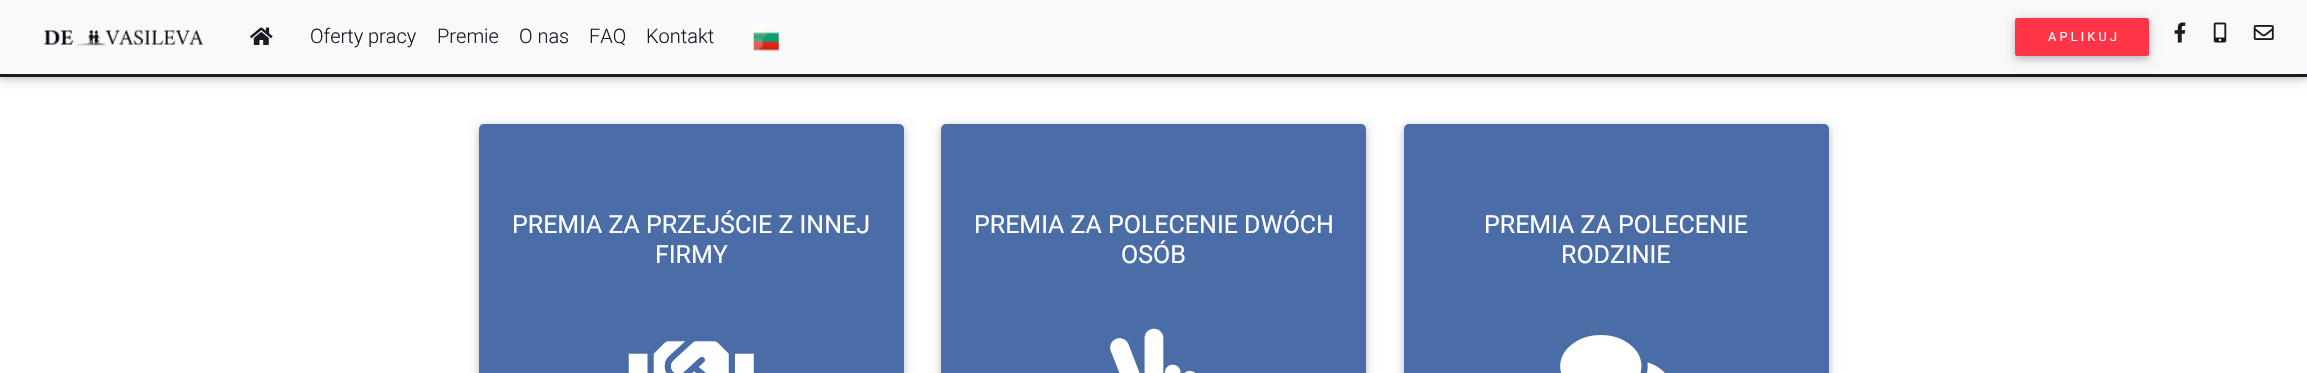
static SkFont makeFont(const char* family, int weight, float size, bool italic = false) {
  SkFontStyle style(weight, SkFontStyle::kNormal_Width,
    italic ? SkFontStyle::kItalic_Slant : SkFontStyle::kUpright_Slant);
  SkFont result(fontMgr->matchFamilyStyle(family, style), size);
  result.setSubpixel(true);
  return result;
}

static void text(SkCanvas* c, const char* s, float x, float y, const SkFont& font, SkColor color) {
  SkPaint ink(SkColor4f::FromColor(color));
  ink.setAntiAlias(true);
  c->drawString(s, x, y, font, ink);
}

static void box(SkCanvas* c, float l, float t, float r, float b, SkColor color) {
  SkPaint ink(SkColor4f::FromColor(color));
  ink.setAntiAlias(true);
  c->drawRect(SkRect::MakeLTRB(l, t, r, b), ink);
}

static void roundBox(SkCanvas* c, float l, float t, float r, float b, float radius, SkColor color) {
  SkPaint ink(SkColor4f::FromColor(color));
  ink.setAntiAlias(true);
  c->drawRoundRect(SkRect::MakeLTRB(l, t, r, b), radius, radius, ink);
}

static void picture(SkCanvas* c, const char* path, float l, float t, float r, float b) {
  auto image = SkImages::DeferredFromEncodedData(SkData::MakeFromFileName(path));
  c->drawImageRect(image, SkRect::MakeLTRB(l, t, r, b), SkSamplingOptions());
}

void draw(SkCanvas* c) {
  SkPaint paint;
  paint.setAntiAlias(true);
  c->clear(0xffffffff);
  paint.setColor(0x1f000000);
  paint.setMaskFilter(SkMaskFilter::MakeBlur(kNormal_SkBlurStyle, 6));
  c->drawRect(SkRect::MakeLTRB(0, 3, 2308, 79), paint);
  paint.setMaskFilter(nullptr);
  paint.setColor(0x29000000);
  paint.setMaskFilter(SkMaskFilter::MakeBlur(kNormal_SkBlurStyle, 3));
  c->drawRect(SkRect::MakeLTRB(0, 3, 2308, 79), paint);
  paint.setMaskFilter(nullptr);
  box(c, 0, 0, 2307, 74, 0xfff9f9fa);
  box(c, 0, 74, 2307, 77, 0xff191a24);
  picture(c, "img_01.png", 44, 29, 204, 46);
  picture(c, "img_02.png", 250, 27, 273, 45);
  SkFont face1 = makeFont("Roboto", 300, 20);
  text(c, "Oferty pracy", 310, 43, face1, 0xff191a24);
  text(c, "Premie", 437, 43, face1, 0xff191a24);
  text(c, "O nas", 519, 43, face1, 0xff191a24);
  text(c, "FAQ", 589, 43, face1, 0xff191a24);
  text(c, "Kontakt", 646, 43, face1, 0xff191a24);
  picture(c, "img_03.png", 753, 25, 779, 51);
  paint.setColor(0x1f000000);
  paint.setMaskFilter(SkMaskFilter::MakeBlur(kNormal_SkBlurStyle, 6));
  c->drawRoundRect(SkRect::MakeLTRB(2015, 20, 2149, 59), 2.5f, 2.5f, paint);
  paint.setMaskFilter(nullptr);
  paint.setColor(0x29000000);
  paint.setMaskFilter(SkMaskFilter::MakeBlur(kNormal_SkBlurStyle, 3));
  c->drawRoundRect(SkRect::MakeLTRB(2015, 20, 2149, 59), 2.5f, 2.5f, paint);
  paint.setMaskFilter(nullptr);
  roundBox(c, 2015, 18, 2149, 56, 2.5f, 0xffff3547);
  SkFont face2 = makeFont("Roboto", 400, 12.75f);
  text(c, "A P L I K U J", 2048, 41, face2, 0xffffffff);
  picture(c, "img_04.png", 2174, 22, 2186, 43);
  picture(c, "img_05.png", 2213, 22, 2227, 43);
  picture(c, "img_06.png", 2253, 25, 2274, 40);
  paint.setColor(0x1f000000);
  paint.setMaskFilter(SkMaskFilter::MakeBlur(kNormal_SkBlurStyle, 6));
  c->drawRoundRect(SkRect::MakeLTRB(479, 126, 904, 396), 5, 5, paint);
  paint.setMaskFilter(nullptr);
  paint.setColor(0x29000000);
  paint.setMaskFilter(SkMaskFilter::MakeBlur(kNormal_SkBlurStyle, 3));
  c->drawRoundRect(SkRect::MakeLTRB(479, 126, 904, 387), 5, 5, paint);
  paint.setMaskFilter(nullptr);
  roundBox(c, 479, 124, 904, 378, 5, 0xff4a6da7);
  SkFont face3 = makeFont("Roboto", 400, 25);
  text(c, "PREMIA ZA PRZEJŚCIE Z INNEJ", 512, 233, face3, 0xffffffff);
  text(c, "FIRMY", 655, 263, face3, 0xffffffff);
  picture(c, "img_07.png", 628, 341, 754, 373);
  paint.setColor(0x1f000000);
  paint.setMaskFilter(SkMaskFilter::MakeBlur(kNormal_SkBlurStyle, 6));
  c->drawRoundRect(SkRect::MakeLTRB(941, 126, 1366, 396), 5, 5, paint);
  paint.setMaskFilter(nullptr);
  paint.setColor(0x29000000);
  paint.setMaskFilter(SkMaskFilter::MakeBlur(kNormal_SkBlurStyle, 3));
  c->drawRoundRect(SkRect::MakeLTRB(941, 126, 1366, 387), 5, 5, paint);
  paint.setMaskFilter(nullptr);
  roundBox(c, 941, 124, 1366, 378, 5, 0xff4a6da7);
  text(c, "PREMIA ZA POLECENIE DWÓCH", 974, 233, face3, 0xffffffff);
  text(c, "OSÓB", 1121, 263, face3, 0xffffffff);
  picture(c, "img_08.png", 1110, 328, 1195, 373);
  paint.setColor(0x1f000000);
  paint.setMaskFilter(SkMaskFilter::MakeBlur(kNormal_SkBlurStyle, 6));
  c->drawRoundRect(SkRect::MakeLTRB(1404, 126, 1829, 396), 5, 5, paint);
  paint.setMaskFilter(nullptr);
  paint.setColor(0x29000000);
  paint.setMaskFilter(SkMaskFilter::MakeBlur(kNormal_SkBlurStyle, 3));
  c->drawRoundRect(SkRect::MakeLTRB(1404, 126, 1829, 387), 5, 5, paint);
  paint.setMaskFilter(nullptr);
  roundBox(c, 1404, 124, 1829, 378, 5, 0xff4a6da7);
  text(c, "PREMIA ZA POLECENIE", 1484, 233, face3, 0xffffffff);
  text(c, "RODZINIE", 1561, 263, face3, 0xffffffff);
  picture(c, "img_09.png", 1560, 335, 1665, 373);
}
